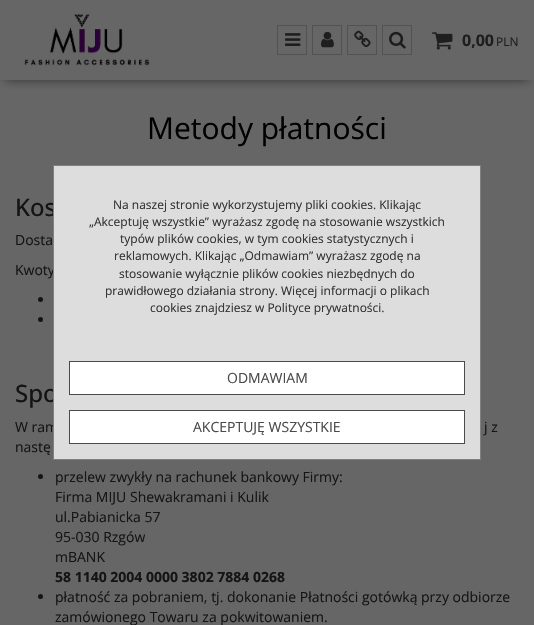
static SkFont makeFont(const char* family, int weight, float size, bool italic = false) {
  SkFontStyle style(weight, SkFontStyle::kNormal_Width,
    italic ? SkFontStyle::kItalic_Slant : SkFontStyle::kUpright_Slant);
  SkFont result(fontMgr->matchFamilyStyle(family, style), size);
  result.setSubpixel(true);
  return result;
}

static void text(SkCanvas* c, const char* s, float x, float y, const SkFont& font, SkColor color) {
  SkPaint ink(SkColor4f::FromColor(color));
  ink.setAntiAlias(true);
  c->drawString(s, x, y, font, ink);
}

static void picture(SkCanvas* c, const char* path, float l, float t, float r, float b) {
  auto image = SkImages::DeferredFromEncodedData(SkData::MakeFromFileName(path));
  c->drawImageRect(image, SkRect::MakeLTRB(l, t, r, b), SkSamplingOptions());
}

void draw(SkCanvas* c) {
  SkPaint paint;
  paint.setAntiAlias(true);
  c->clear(0xff666666);
  c->save();
  c->clipRect(SkRect::MakeLTRB(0, 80, 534, 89));
  paint.setColor(0x80000000);
  paint.setMaskFilter(SkMaskFilter::MakeBlur(kNormal_SkBlurStyle, 5));
  c->drawRect(SkRect::MakeLTRB(5, 10, 529, 80), paint);
  paint.setMaskFilter(nullptr);
  c->restore();
  picture(c, "img_01.png", 24, 14, 150, 66);
  paint.setStyle(SkPaint::kStroke_Style);
  paint.setStrokeWidth(1);
  paint.setColor(0xff525252);
  c->drawRect(SkRect::MakeLTRB(277.5f, 25.5f, 306.5f, 54.5f), paint);
  picture(c, "img_02.png", 285, 33, 301, 46);
  c->drawRect(SkRect::MakeLTRB(312.5f, 25.5f, 341.5f, 54.5f), paint);
  picture(c, "img_03.png", 321, 31, 334, 48);
  c->drawRect(SkRect::MakeLTRB(347.5f, 25.5f, 376.5f, 54.5f), paint);
  picture(c, "img_04.png", 354, 30, 371, 48);
  c->drawRect(SkRect::MakeLTRB(382.5f, 25.5f, 411.5f, 54.5f), paint);
  picture(c, "img_05.png", 389, 31, 406, 49);
  picture(c, "img_06.png", 432, 32, 453, 50);
  SkFont face1 = makeFont("Open Sans", 700, 16);
  text(c, "0,00", 462, 46, face1, 0xff1e1e1e);
  SkFont face2 = makeFont("Open Sans", 400, 12);
  text(c, "PLN", 496, 46, face2, 0xff1e1e1e);
  SkFont face3 = makeFont("Open Sans", 400, 30);
  text(c, "Metody płatności", 147, 139, face3, 0xff000000);
  SkFont face4 = makeFont("Open Sans", 500, 24);
  text(c, "Kos", 15, 216, face4, 0xff141414);
  SkFont face5 = makeFont("Open Sans", 400, 14);
  text(c, "Dosta", 15, 245, face5, 0xff141414);
  text(c, "Kwoty", 15, 275, face5, 0xff141414);
  paint.setStyle(SkPaint::kFill_Style);
  paint.setColor(0xff141414);
  c->drawCircle(40.5f, 299.5f, 2.5f, paint);
  c->drawCircle(40.5f, 319.5f, 2.5f, paint);
  text(c, "Spo", 15, 402, face4, 0xff141414);
  text(c, "W ram", 15, 432, face5, 0xff141414);
  text(c, "j z", 484, 432, face5, 0xff141414);
  text(c, "nastę", 15, 452, face5, 0xff141414);
  c->drawCircle(40.5f, 476.5f, 2.5f, paint);
  text(c, "przelew zwykły na rachunek bankowy Firmy:", 55, 482, face5, 0xff141414);
  text(c, "Firma MIJU Shewakramani i Kulik", 55, 502, face5, 0xff141414);
  text(c, "ul.Pabianicka 57", 55, 522, face5, 0xff141414);
  text(c, "95-030 Rzgów", 55, 542, face5, 0xff141414);
  text(c, "mBANK", 55, 562, face5, 0xff141414);
  SkFont face6 = makeFont("Open Sans", 700, 14);
  text(c, "58 1140 2004 0000 3802 7884 0268", 55, 582, face6, 0xff141414);
  c->drawCircle(40.5f, 596.5f, 2.5f, paint);
  text(c, "płatność za pobraniem, tj. dokonanie Płatności gotówką przy odbiorze", 55, 602, face5, 0xff141414);
  text(c, "zamówionego Towaru za pokwitowaniem.", 55, 622, face5, 0xff141414);
  paint.setColor(0xffdddddd);
  c->drawRect(SkRect::MakeLTRB(53.5f, 165.5f, 480.5f, 459.5f), paint);
  paint.setStyle(SkPaint::kStroke_Style);
  paint.setColor(0xff808080);
  c->drawRect(SkRect::MakeLTRB(53.5f, 165.5f, 480.5f, 459.5f), paint);
  text(c, "Na naszej stronie wykorzystujemy pliki cookies. Klikając", 113, 209, face2, 0xff333333);
  text(c, "„Akceptuję wszystkie” wyrażasz zgodę na stosowanie wszystkich", 89, 226, face2, 0xff333333);
  text(c, "typów plików cookies, w tym cookies statystycznych i", 120, 243, face2, 0xff333333);
  text(c, "reklamowych. Klikając „Odmawiam” wyrażasz zgodę na", 114, 260, face2, 0xff333333);
  text(c, "stosowanie wyłącznie plików cookies niezbędnych do", 119, 278, face2, 0xff333333);
  text(c, "prawidłowego działania strony. Więcej informacji o plikach", 105, 295, face2, 0xff333333);
  text(c, "cookies znajdziesz w Polityce prywatności.", 150, 312, face2, 0xff333333);
  paint.setStyle(SkPaint::kFill_Style);
  paint.setColor(0xffffffff);
  c->drawRect(SkRect::MakeLTRB(69.5f, 361.5f, 464.5f, 394.5f), paint);
  paint.setStyle(SkPaint::kStroke_Style);
  paint.setColor(0xff4a4a4a);
  c->drawRect(SkRect::MakeLTRB(69.5f, 361.5f, 464.5f, 394.5f), paint);
  text(c, "ODMAWIAM", 227, 383, face5, 0xff4a4a4a);
  paint.setStyle(SkPaint::kFill_Style);
  paint.setColor(0xffffffff);
  c->drawRect(SkRect::MakeLTRB(69.5f, 410.5f, 464.5f, 443.5f), paint);
  paint.setStyle(SkPaint::kStroke_Style);
  paint.setColor(0xff4a4a4a);
  c->drawRect(SkRect::MakeLTRB(69.5f, 410.5f, 464.5f, 443.5f), paint);
  text(c, "AKCEPTUJĘ WSZYSTKIE", 193, 432, face5, 0xff4a4a4a);
}
